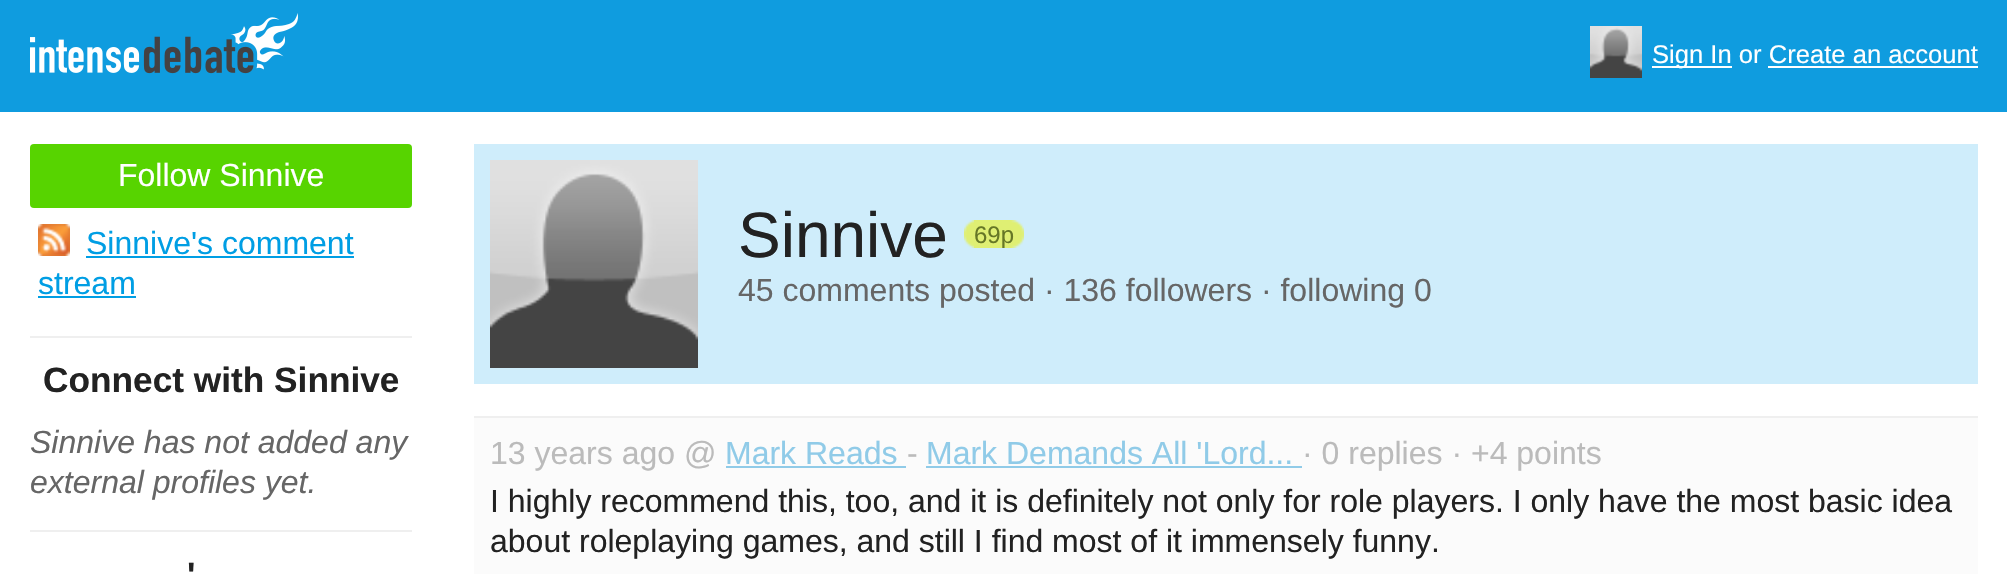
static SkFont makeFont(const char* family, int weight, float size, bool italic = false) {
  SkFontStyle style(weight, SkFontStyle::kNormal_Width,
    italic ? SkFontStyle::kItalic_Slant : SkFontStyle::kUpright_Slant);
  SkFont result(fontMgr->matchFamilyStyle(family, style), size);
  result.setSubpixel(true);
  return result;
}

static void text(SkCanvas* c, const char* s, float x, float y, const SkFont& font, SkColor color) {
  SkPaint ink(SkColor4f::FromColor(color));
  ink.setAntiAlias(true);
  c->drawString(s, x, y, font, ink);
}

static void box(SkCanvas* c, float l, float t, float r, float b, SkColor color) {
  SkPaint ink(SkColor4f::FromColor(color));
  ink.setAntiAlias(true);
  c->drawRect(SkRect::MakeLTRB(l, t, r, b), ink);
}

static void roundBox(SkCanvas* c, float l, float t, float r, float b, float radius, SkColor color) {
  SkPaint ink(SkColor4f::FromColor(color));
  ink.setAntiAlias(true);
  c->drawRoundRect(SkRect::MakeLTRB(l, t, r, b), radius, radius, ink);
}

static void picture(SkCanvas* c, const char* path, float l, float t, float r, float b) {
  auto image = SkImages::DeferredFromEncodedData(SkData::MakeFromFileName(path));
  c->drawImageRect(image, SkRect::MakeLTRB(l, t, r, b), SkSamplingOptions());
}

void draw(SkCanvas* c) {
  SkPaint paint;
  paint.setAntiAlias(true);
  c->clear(0xffffffff);
  box(c, 0, 0, 2007, 112, 0xff0f9cdf);
  picture(c, "img_01.png", 30, 13, 298, 74);
  picture(c, "img_02.png", 1590, 26, 1642, 78);
  box(c, 1652, 66, 1732, 68, 0xffffffff);
  SkFont face1 = makeFont("Liberation Sans", 400, 25.6f);
  text(c, "Sign In or Create an account", 1652, 63, face1, 0xffffffff);
  box(c, 1768, 66, 1978, 68, 0xffffffff);
  roundBox(c, 30, 144, 412, 208, 4, 0xff57d400);
  SkFont face2 = makeFont("Liberation Sans", 400, 32);
  text(c, "Follow Sinnive", 118, 186, face2, 0xffffffff);
  picture(c, "img_03.png", 38, 224, 70, 256);
  text(c, "Sinnive's comment", 86, 254, face2, 0xff009ee4);
  box(c, 86, 256, 354, 258, 0xff009ee4);
  text(c, "stream", 38, 294, face2, 0xff009ee4);
  box(c, 38, 296, 136, 298, 0xff009ee4);
  box(c, 30, 336, 412, 338, 0xffefefef);
  SkFont face3 = makeFont("Liberation Sans", 700, 35.25f);
  text(c, "Connect with Sinnive", 43, 392, face3, 0xff222222);
  SkFont face4 = makeFont("Liberation Sans", 400, 32, true);
  text(c, "Sinnive has not added any", 30, 453, face4, 0xff666666);
  text(c, "external profiles yet.", 30, 493, face4, 0xff666666);
  box(c, 30, 530, 412, 532, 0xffefefef);
  text(c, "'", 187, 587, face3, 0xff222222);
  box(c, 474, 144, 1978, 384, 0xffcfedfb);
  picture(c, "img_04.png", 490, 160, 698, 368);
  SkFont face5 = makeFont("Liberation Sans", 400, 64);
  text(c, "Sinnive", 738, 257, face5, 0xff222222);
  picture(c, "img_05.png", 964, 220, 974, 248);
  picture(c, "img_06.png", 974, 220, 1024, 248);
  SkFont face6 = makeFont("Liberation Sans", 400, 24);
  text(c, "69p", 974, 243, face6, 0xff667726);
  text(c, "45 comments posted · 136 followers · following 0", 738, 301, face2, 0xff666666);
  box(c, 474, 418, 1978, 574, 0xfffbfbfb);
  box(c, 474, 416, 1978, 418, 0xffefefef);
  text(c, "13 years ago @", 490, 464, face2, 0xffbbbbbb);
  text(c, "Mark Reads", 725, 464, face2, 0xff90cbe8);
  box(c, 726, 466, 906, 468, 0xff90cbe8);
  text(c, "-", 907, 464, face2, 0xffbbbbbb);
  text(c, "Mark Demands All 'Lord...", 926, 464, face2, 0xff90cbe8);
  box(c, 926, 466, 1302, 468, 0xff90cbe8);
  text(c, "· 0 replies · +4 points", 1302, 464, face2, 0xffbbbbbb);
  text(c, "I highly recommend this, too, and it is definitely not only for role players. I only have the most basic idea", 490, 512, face2, 0xff222222);
  text(c, "about roleplaying games, and still I find most of it immensely funny.", 490, 552, face2, 0xff222222);
}
